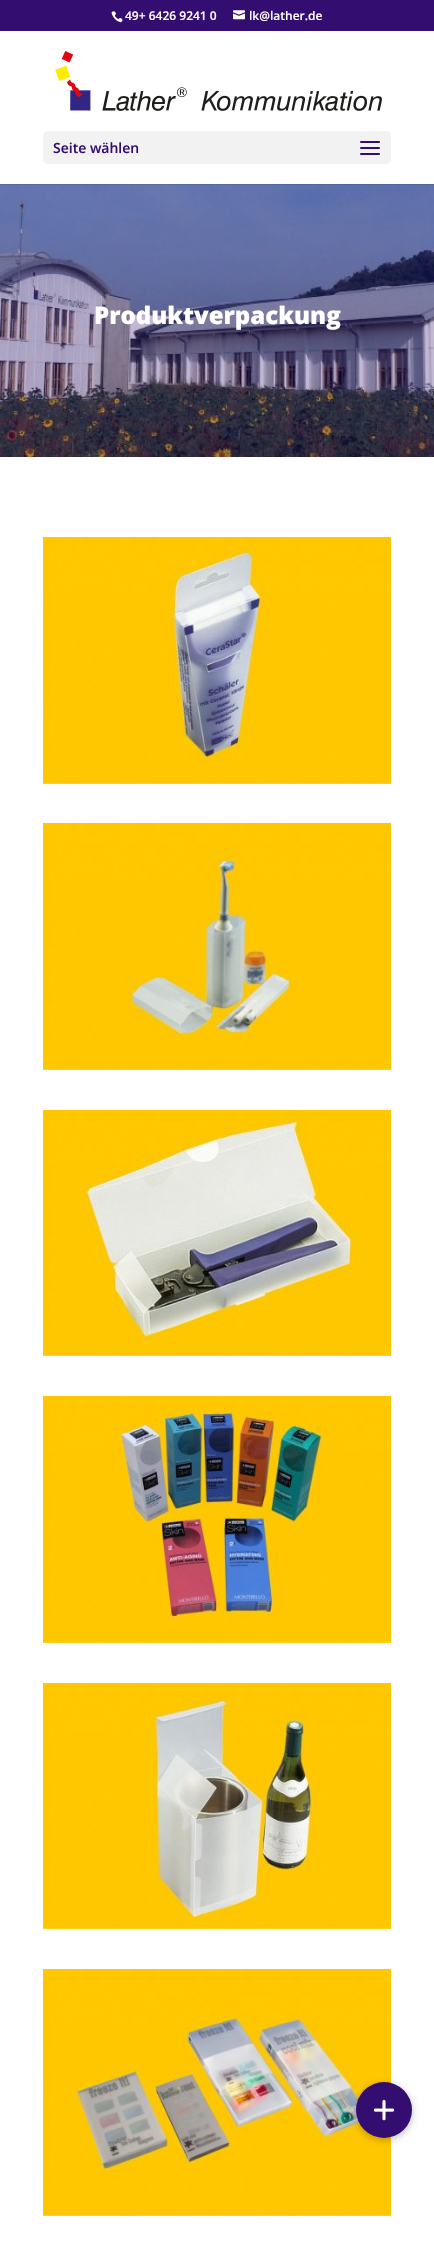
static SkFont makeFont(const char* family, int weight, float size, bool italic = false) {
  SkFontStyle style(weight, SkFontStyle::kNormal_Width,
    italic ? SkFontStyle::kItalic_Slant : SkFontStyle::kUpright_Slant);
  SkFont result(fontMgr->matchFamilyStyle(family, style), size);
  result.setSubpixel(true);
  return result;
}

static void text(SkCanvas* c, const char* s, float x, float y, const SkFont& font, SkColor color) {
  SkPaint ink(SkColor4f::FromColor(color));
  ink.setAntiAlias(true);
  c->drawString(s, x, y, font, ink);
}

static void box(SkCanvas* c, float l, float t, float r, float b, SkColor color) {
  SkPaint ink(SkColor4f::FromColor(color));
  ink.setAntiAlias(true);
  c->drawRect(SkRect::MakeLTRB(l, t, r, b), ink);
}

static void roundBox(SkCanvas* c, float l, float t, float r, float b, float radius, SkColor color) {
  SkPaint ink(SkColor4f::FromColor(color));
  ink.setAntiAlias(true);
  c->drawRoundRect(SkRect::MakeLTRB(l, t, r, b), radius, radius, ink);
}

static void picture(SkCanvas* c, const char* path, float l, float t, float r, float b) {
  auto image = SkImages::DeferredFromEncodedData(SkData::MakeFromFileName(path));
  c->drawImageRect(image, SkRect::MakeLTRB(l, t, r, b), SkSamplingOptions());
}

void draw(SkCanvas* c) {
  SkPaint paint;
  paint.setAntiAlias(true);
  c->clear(0xffffffff);
  box(c, 0, 0, 434, 31, 0xff330d70);
  picture(c, "img_01.png", 111, 11, 123, 23);
  SkFont face1 = makeFont("Open Sans", 600, 12);
  text(c, "49+ 6426 9241 0", 125, 20, face1, 0xffffffff);
  picture(c, "img_02.png", 233, 10, 245, 20);
  text(c, "lk@lather.de", 249, 20, face1, 0xffffffff);
  picture(c, "img_05.png", 0, 184, 434, 457);
  box(c, 0, 184, 434, 185, 0x1a000000);
  picture(c, "img_03.png", 55, 51, 382, 111);
  roundBox(c, 43, 131, 391, 164, 5, 0xfff2f2f2);
  SkFont face2 = makeFont("Open Sans", 600, 14);
  text(c, "Seite wählen", 53, 153, face2, 0xff330e70);
  picture(c, "img_04.png", 360, 141, 380, 155);
  SkFont face3 = makeFont("Open Sans", 800, 24);
  text(c, "Produktverpackung", 94, 324, face3, 0xffffffff);
  picture(c, "img_06.png", 43, 537, 391, 784);
  picture(c, "img_07.png", 43, 823, 391, 1070);
  picture(c, "img_08.png", 43, 1110, 391, 1356);
  picture(c, "img_09.png", 43, 1396, 391, 1643);
  picture(c, "img_10.png", 43, 1683, 391, 1929);
  picture(c, "img_11.png", 43, 1969, 391, 2216);
  paint.setColor(0x33000000);
  paint.setMaskFilter(SkMaskFilter::MakeBlur(kNormal_SkBlurStyle, 3));
  c->drawRoundRect(SkRect::MakeLTRB(355, 2083, 413, 2141), 29, 29, paint);
  paint.setMaskFilter(nullptr);
  paint.setColor(0xff330e70);
  c->drawCircle(384, 2110, 28, paint);
  picture(c, "img_12.png", 373, 2100, 395, 2121);
}
